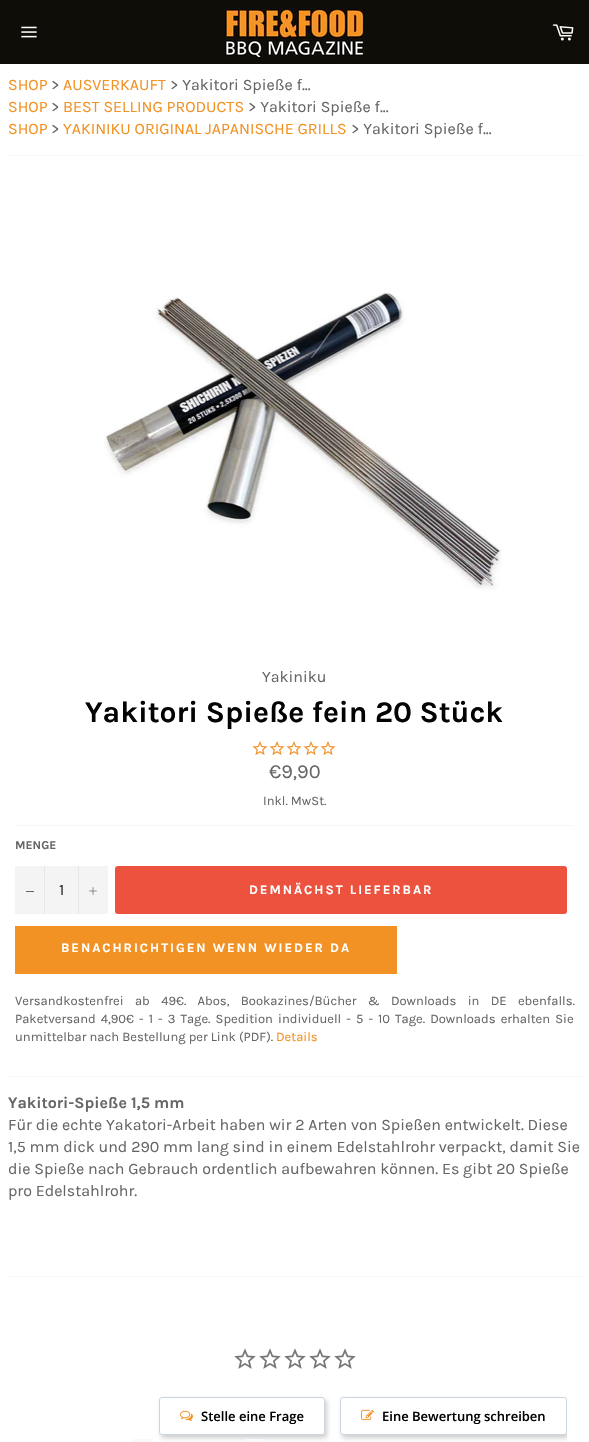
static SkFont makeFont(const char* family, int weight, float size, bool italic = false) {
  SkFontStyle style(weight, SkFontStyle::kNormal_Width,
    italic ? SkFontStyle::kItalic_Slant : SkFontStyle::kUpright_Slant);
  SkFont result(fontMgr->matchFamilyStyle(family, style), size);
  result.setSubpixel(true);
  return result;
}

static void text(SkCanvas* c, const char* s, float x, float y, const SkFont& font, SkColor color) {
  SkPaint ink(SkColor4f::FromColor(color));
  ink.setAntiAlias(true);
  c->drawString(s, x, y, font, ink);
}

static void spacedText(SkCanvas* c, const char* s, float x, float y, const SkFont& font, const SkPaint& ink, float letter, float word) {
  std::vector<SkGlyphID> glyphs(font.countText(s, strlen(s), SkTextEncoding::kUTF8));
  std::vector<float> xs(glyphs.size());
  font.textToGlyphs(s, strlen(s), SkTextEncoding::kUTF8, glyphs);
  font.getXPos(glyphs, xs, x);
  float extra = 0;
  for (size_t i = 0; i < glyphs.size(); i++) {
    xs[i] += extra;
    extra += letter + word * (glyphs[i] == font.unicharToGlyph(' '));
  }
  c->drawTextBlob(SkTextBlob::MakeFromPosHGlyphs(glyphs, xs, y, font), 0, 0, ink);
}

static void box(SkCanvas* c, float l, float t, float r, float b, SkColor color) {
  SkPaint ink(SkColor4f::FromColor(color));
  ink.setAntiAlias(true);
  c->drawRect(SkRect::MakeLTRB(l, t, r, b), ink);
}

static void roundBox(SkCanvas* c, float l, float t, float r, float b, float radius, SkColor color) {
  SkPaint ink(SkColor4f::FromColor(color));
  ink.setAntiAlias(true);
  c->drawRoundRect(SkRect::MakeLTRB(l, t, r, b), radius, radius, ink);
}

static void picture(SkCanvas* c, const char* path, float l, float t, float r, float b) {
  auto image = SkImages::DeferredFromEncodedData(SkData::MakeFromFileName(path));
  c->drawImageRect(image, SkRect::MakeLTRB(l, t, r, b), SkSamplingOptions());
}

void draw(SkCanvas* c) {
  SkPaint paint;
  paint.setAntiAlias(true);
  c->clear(0xffffffff);
  box(c, 0, 0, 589, 64, 0xff0f0d08);
  picture(c, "img_01.png", 21, 26, 37, 38);
  picture(c, "img_02.png", 225, 8, 365, 57);
  picture(c, "img_03.png", 552, 24, 574, 41);
  SkFont face1 = makeFont("Karla", 400, 16);
  text(c, "SHOP", 8, 90, face1, 0xfff29224);
  text(c, ">", 51, 90, face1, 0xff666666);
  text(c, "AUSVERKAUFT", 63, 90, face1, 0xfff29224);
  text(c, "> Yakitori Spieße f...", 170, 90, face1, 0xff666666);
  text(c, "SHOP", 8, 112, face1, 0xfff29224);
  text(c, ">", 51, 112, face1, 0xff666666);
  text(c, "BEST SELLING PRODUCTS", 63, 112, face1, 0xfff29224);
  text(c, "> Yakitori Spieße f...", 248, 112, face1, 0xff666666);
  text(c, "SHOP", 8, 134, face1, 0xfff29224);
  text(c, ">", 51, 134, face1, 0xff666666);
  text(c, "YAKINIKU ORIGINAL JAPANISCHE GRILLS", 63, 134, face1, 0xfff29224);
  text(c, "> Yakitori Spieße f...", 351, 134, face1, 0xff666666);
  box(c, 8, 155, 582, 156, 0xfff7f7f7);
  picture(c, "img_04.png", 104, 292, 502, 590);
  text(c, "Yakiniku", 262, 682, face1, 0xff666666);
  SkFont face2 = makeFont("Karla", 700, 30);
  text(c, "Yakitori Spieße fein 20 Stück", 85, 722, face2, 0xff030303);
  picture(c, "img_05.png", 252, 741, 268, 756);
  picture(c, "img_05.png", 269, 741, 285, 756);
  picture(c, "img_05.png", 286, 741, 302, 756);
  picture(c, "img_05.png", 303, 741, 319, 756);
  picture(c, "img_05.png", 320, 741, 336, 756);
  SkFont face3 = makeFont("Karla", 400, 20);
  text(c, "€9,90", 269, 778, face3, 0xff666666);
  SkFont face4 = makeFont("Karla", 400, 13);
  text(c, "Inkl. MwSt.", 263, 805, face4, 0xff666666);
  box(c, 15, 825, 574, 826, 0xfff7f7f7);
  SkFont face5 = makeFont("Karla", 700, 12);
  text(c, "MENGE", 15, 849, face5, 0xff666666);
  box(c, 15, 866, 108, 914, 0xfff4f4f4);
  box(c, 44, 866, 45, 914, 0xffe7e7e7);
  box(c, 26, 891, 34, 892, 0xff666666);
  text(c, "1", 59, 895, face1, 0xff333333);
  box(c, 78, 866, 79, 914, 0xffe7e7e7);
  picture(c, "img_06.png", 89, 887, 97, 895);
  roundBox(c, 115, 866, 567, 914, 3, 0xffec523e);
  SkFont face6 = makeFont("Karla", 700, 13);
  paint.setColor(0xffffffff);
  spacedText(c, "DEMNÄCHST LIEFERBAR", 249, 894, face6, paint, 1.95f, 0);
  box(c, 15, 926, 397, 974, 0xfff29224);
  spacedText(c, "BENACHRICHTIGEN WENN WIEDER DA", 61, 952, face6, paint, 1.95f, 0);
  paint.setColor(0xff666666);
  spacedText(c, "Versandkostenfrei ab 49€. Abos, Bookazines/Bücher & Downloads in DE ebenfalls.", 15, 1005, face4, paint, 0, 8.25f);
  spacedText(c, "Paketversand 4,90€ - 1 - 3 Tage. Spedition individuell - 5 - 10 Tage. Downloads erhalten Sie", 15, 1023, face4, paint, 0, 2);
  text(c, "unmittelbar nach Bestellung per Link (PDF).", 15, 1041, face4, 0xff666666);
  text(c, "Details", 276, 1041, face4, 0xfff29224);
  box(c, 8, 1076, 582, 1077, 0xfff7f7f7);
  SkFont face7 = makeFont("Karla", 700, 16);
  text(c, "Yakitori-Spieße 1,5 mm", 8, 1108, face7, 0xff666666);
  text(c, "Für die echte Yakatori-Arbeit haben wir 2 Arten von Spießen entwickelt. Diese", 8, 1130, face1, 0xff666666);
  text(c, "1,5 mm dick und 290 mm lang sind in einem Edelstahlrohr verpackt, damit Sie", 8, 1152, face1, 0xff666666);
  text(c, "die Spieße nach Gebrauch ordentlich aufbewahren können. Es gibt 20 Spieße", 8, 1174, face1, 0xff666666);
  text(c, "pro Edelstahlrohr.", 8, 1196, face1, 0xff666666);
  box(c, 8, 1276, 582, 1277, 0xfff7f7f7);
  picture(c, "img_07.png", 234, 1348, 256, 1369);
  picture(c, "img_07.png", 259, 1348, 281, 1369);
  picture(c, "img_07.png", 284, 1348, 306, 1369);
  picture(c, "img_07.png", 309, 1348, 331, 1369);
  picture(c, "img_07.png", 334, 1348, 356, 1369);
  c->save();
  c->clipPath(SkPathBuilder(SkPathFillType::kEvenOdd).moveTo(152, 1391).lineTo(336, 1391).lineTo(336, 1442).lineTo(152, 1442).close().moveTo(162, 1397).lineTo(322, 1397).cubicTo(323.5f, 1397, 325, 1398.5f, 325, 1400).lineTo(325, 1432).cubicTo(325, 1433.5f, 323.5f, 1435, 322, 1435).lineTo(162, 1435).cubicTo(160.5f, 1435, 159, 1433.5f, 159, 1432).lineTo(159, 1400).cubicTo(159, 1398.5f, 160.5f, 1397, 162, 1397).close().detach(), true);
  paint.setColor(0x6b888888);
  paint.setMaskFilter(SkMaskFilter::MakeBlur(kNormal_SkBlurStyle, 2.5f));
  c->drawRoundRect(SkRect::MakeLTRB(161, 1400, 327, 1438), 3, 3, paint);
  paint.setMaskFilter(nullptr);
  c->restore();
  paint.setStyle(SkPaint::kStroke_Style);
  paint.setStrokeWidth(1);
  paint.setColor(0xffccd6e0);
  c->drawRoundRect(SkRect::MakeLTRB(159.5f, 1397.5f, 324.5f, 1434.5f), 2.5f, 2.5f, paint);
  picture(c, "img_08.png", 180, 1410, 193, 1421);
  SkFont face8 = makeFont("Open Sans", 600, 13);
  text(c, "Stelle eine Frage", 201, 1421, face8, 0xff030303);
  c->save();
  c->clipRect(SkRect::MakeLTRB(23, 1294, 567, 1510));
  c->clipPath(SkPathBuilder(SkPathFillType::kEvenOdd).moveTo(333, 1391).lineTo(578, 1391).lineTo(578, 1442).lineTo(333, 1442).close().moveTo(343, 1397).lineTo(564, 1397).cubicTo(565.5f, 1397, 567, 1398.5f, 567, 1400).lineTo(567, 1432).cubicTo(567, 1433.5f, 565.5f, 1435, 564, 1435).lineTo(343, 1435).cubicTo(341.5f, 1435, 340, 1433.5f, 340, 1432).lineTo(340, 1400).cubicTo(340, 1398.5f, 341.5f, 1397, 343, 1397).close().detach(), true);
  paint.setStyle(SkPaint::kFill_Style);
  paint.setColor(0x6b888888);
  paint.setMaskFilter(SkMaskFilter::MakeBlur(kNormal_SkBlurStyle, 2.5f));
  c->drawRoundRect(SkRect::MakeLTRB(342, 1400, 569, 1438), 3, 3, paint);
  paint.setMaskFilter(nullptr);
  c->restore();
  paint.setStyle(SkPaint::kStroke_Style);
  paint.setColor(0xffccd6e0);
  c->drawRoundRect(SkRect::MakeLTRB(340.5f, 1397.5f, 566.5f, 1434.5f), 2.5f, 2.5f, paint);
  picture(c, "img_09.png", 361, 1409, 374, 1421);
  text(c, "Eine Bewertung schreiben", 382, 1421, face8, 0xff030303);
  box(c, 133, 1439, 151, 1442, 0xfff8f9fa);
  box(c, 245, 1439, 263, 1442, 0xfff8f9fa);
}
